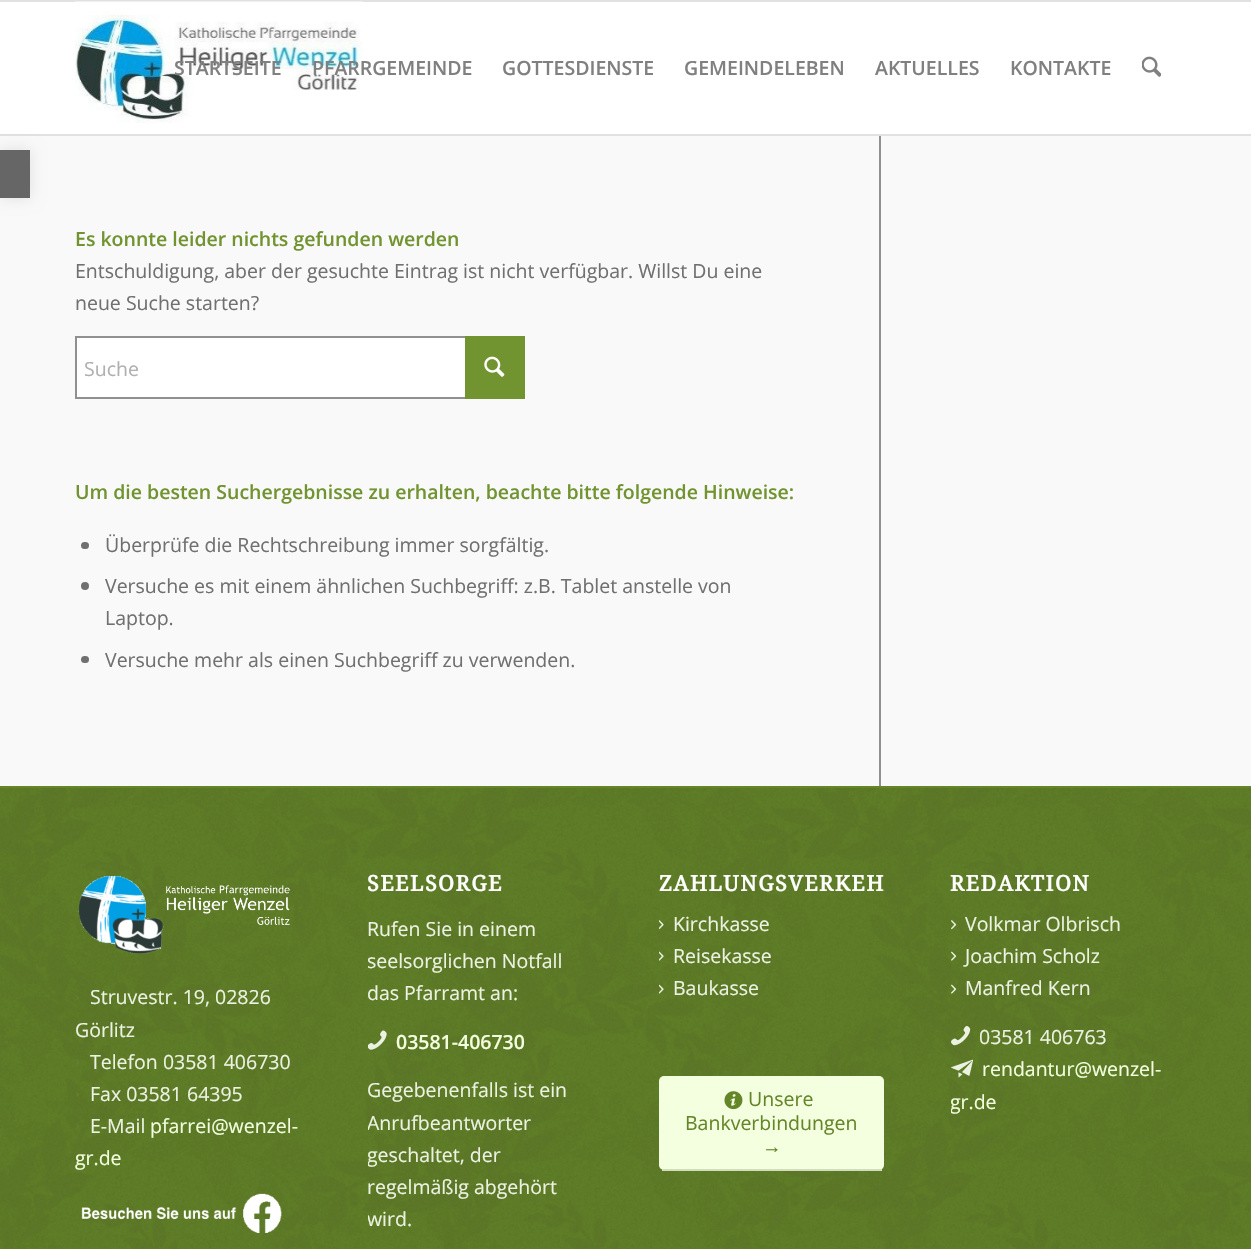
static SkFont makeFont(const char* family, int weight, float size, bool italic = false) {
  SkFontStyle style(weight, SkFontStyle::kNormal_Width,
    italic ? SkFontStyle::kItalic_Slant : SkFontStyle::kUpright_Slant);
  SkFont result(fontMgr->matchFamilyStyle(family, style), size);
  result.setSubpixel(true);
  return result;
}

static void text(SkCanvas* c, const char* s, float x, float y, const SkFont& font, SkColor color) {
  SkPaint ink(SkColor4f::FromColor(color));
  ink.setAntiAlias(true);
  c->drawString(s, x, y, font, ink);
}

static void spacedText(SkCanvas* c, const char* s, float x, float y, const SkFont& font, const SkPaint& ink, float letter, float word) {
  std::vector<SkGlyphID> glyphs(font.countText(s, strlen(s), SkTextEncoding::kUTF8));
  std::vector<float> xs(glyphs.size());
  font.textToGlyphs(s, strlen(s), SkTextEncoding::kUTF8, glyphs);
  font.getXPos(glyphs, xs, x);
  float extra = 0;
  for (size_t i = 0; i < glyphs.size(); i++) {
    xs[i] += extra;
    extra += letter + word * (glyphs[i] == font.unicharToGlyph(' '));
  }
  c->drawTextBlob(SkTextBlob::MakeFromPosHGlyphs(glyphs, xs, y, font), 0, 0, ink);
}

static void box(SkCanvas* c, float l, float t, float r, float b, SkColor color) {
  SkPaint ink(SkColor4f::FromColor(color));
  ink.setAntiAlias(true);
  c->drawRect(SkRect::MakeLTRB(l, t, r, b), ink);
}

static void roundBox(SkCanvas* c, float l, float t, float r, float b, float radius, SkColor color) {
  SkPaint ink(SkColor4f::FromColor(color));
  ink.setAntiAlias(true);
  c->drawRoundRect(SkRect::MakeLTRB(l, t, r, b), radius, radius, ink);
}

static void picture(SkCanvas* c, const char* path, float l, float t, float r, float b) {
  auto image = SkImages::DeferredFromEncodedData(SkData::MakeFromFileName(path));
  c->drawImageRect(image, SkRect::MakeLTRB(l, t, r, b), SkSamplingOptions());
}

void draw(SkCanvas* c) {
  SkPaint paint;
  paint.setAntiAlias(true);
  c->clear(0xfff9f9f9);
  box(c, 879, 132, 881, 786, 0xff909090);
  box(c, 0, 2, 1251, 134, 0xffffffff);
  box(c, 0, 134, 1251, 136, 0xffe1e1e1);
  paint.setColor(0x1a000000);
  paint.setMaskFilter(SkMaskFilter::MakeBlur(kNormal_SkBlurStyle, 7.5f));
  c->drawRect(SkRect::MakeLTRB(0, 150, 30, 198), paint);
  paint.setMaskFilter(nullptr);
  box(c, 0, 150, 30, 198, 0xff666666);
  box(c, 0, 0, 1251, 2, 0xffe1e1e1);
  picture(c, "img_01.png", 75, 1, 363, 123);
  SkFont face1 = makeFont("Open Sans", 600, 19.5f);
  text(c, "STARTSEITE", 174, 75, face1, 0xff808080);
  text(c, "PFARRGEMEINDE", 312, 75, face1, 0xff808080);
  text(c, "GOTTESDIENSTE", 502, 75, face1, 0xff808080);
  text(c, "GEMEINDELEBEN", 684, 75, face1, 0xff808080);
  text(c, "AKTUELLES", 875, 75, face1, 0xff808080);
  text(c, "KONTAKTE", 1010, 75, face1, 0xff808080);
  picture(c, "img_02.png", 1142, 56, 1161, 77);
  text(c, "Es konnte leider nichts gefunden werden", 75, 246, face1, 0xff719430);
  SkFont face2 = makeFont("Open Sans", 400, 19.5f);
  text(c, "Entschuldigung, aber der gesuchte Eintrag ist nicht verfügbar. Willst Du eine", 75, 278, face2, 0xff707070);
  text(c, "neue Suche starten?", 75, 310, face2, 0xff707070);
  box(c, 77, 338, 465, 397, 0xffffffff);
  paint.setStyle(SkPaint::kStroke_Style);
  paint.setStrokeWidth(2);
  paint.setColor(0xff909090);
  c->drawRect(SkRect::MakeLTRB(76, 337, 524, 398), paint);
  box(c, 465, 336, 525, 399, 0xff719430);
  text(c, "Suche", 84, 376, face2, 0xffb0b0b0);
  picture(c, "img_03.png", 484, 356, 505, 377);
  text(c, "Um die besten Suchergebnisse zu erhalten, beachte bitte folgende Hinweise:", 75, 499, face1, 0xff719430);
  roundBox(c, 81, 542, 89, 549, 3.5f, 0xff707070);
  text(c, "Überprüfe die Rechtschreibung immer sorgfältig.", 105, 552, face2, 0xff707070);
  paint.setStyle(SkPaint::kFill_Style);
  paint.setColor(0xff707070);
  c->drawCircle(85, 586, 4, paint);
  text(c, "Versuche es mit einem ähnlichen Suchbegriff: z.B. Tablet anstelle von", 105, 593, face2, 0xff707070);
  text(c, "Laptop.", 105, 625, face2, 0xff707070);
  roundBox(c, 81, 656, 89, 663, 3.5f, 0xff707070);
  text(c, "Versuche mehr als einen Suchbegriff zu verwenden.", 105, 667, face2, 0xff707070);
  box(c, 0, 786, 1251, 1249, 0xff658529);
  picture(c, "img_04.png", 0, 788, 1251, 1249);
  picture(c, "img_05.png", 78, 876, 290, 954);
  picture(c, "img_06.png", 76, 996, 79, 1000);
  text(c, "Struvestr. 19, 02826", 90, 1004, face2, 0xffecf2e1);
  text(c, "Görlitz", 75, 1037, face2, 0xffecf2e1);
  picture(c, "img_07.png", 76, 1060, 79, 1065);
  text(c, "Telefon 03581 406730", 90, 1069, face2, 0xffecf2e1);
  picture(c, "img_08.png", 76, 1092, 79, 1097);
  text(c, "Fax 03581 64395", 90, 1101, face2, 0xffecf2e1);
  picture(c, "img_09.png", 76, 1124, 79, 1129);
  text(c, "E-Mail", 90, 1133, face2, 0xffecf2e1);
  text(c, "pfarrei@wenzel-", 150, 1133, face2, 0xfff3ffde);
  text(c, "gr.de", 75, 1165, face2, 0xfff3ffde);
  picture(c, "img_10.png", 81, 1193, 282, 1233);
  SkFont face3 = makeFont("Droid Serif", 700, 21.5f);
  paint.setColor(0xffffffff);
  spacedText(c, "SEELSORGE", 367, 891, face3, paint, 1.5f, 0);
  text(c, "Rufen Sie in einem", 367, 936, face2, 0xffecf2e1);
  c->save();
  c->clipRect(SkRect::MakeLTRB(368, 855, 593, 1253));
  text(c, "seelsorglichen Notfall", 367, 968, face2, 0xffecf2e1);
  text(c, "das Pfarramt an:", 367, 1000, face2, 0xffecf2e1);
  c->restore();
  picture(c, "img_11.png", 368, 1030, 387, 1050);
  text(c, "03581-406730", 396, 1049, face1, 0xfff3ffde);
  text(c, "Gegebenenfalls ist ein", 367, 1097, face2, 0xffecf2e1);
  c->save();
  c->clipRect(SkRect::MakeLTRB(368, 855, 593, 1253));
  text(c, "Anrufbeantworter", 367, 1130, face2, 0xffecf2e1);
  text(c, "geschaltet, der", 367, 1162, face2, 0xffecf2e1);
  c->restore();
  text(c, "regelmäßig abgehört", 367, 1194, face2, 0xffecf2e1);
  c->save();
  c->clipRect(SkRect::MakeLTRB(368, 855, 593, 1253));
  text(c, "wird.", 367, 1226, face2, 0xffecf2e1);
  c->restore();
  spacedText(c, "ZAHLUNGSVERKEH", 659, 891, face3, paint, 1.5f, 0);
  picture(c, "img_12.png", 659, 920, 664, 930);
  text(c, "Kirchkasse", 673, 931, face2, 0xffecf2e1);
  picture(c, "img_13.png", 659, 951, 664, 961);
  text(c, "Reisekasse", 673, 963, face2, 0xffecf2e1);
  picture(c, "img_14.png", 659, 984, 664, 994);
  text(c, "Baukasse", 673, 995, face2, 0xffecf2e1);
  roundBox(c, 659, 1076, 884, 1170, 5, 0xfff3ffde);
  box(c, 662, 1169, 882, 1171, 0xffd1ddbc);
  picture(c, "img_15.png", 724, 1091, 743, 1110);
  text(c, "Unsere", 748, 1106, face2, 0xff658529);
  text(c, "Bankverbindungen", 685, 1130, face2, 0xff658529);
  SkFont face4 = makeFont("Liberation Sans", 400, 19.5f);
  text(c, "→", 762, 1153, face4, 0xff658529);
  spacedText(c, "REDAKTION", 950, 891, face3, paint, 1.5f, 0);
  picture(c, "img_16.png", 951, 920, 957, 930);
  text(c, "Volkmar Olbrisch", 965, 931, face2, 0xffecf2e1);
  picture(c, "img_17.png", 951, 951, 957, 961);
  text(c, "Joachim Scholz", 965, 963, face2, 0xffecf2e1);
  picture(c, "img_18.png", 951, 984, 957, 994);
  text(c, "Manfred Kern", 965, 995, face2, 0xffecf2e1);
  picture(c, "img_19.png", 951, 1026, 971, 1046);
  text(c, "03581 406763", 979, 1044, face2, 0xffecf2e1);
  picture(c, "img_20.png", 951, 1059, 974, 1078);
  text(c, "rendantur@wenzel-", 982, 1076, face2, 0xfff3ffde);
  c->save();
  c->clipRect(SkRect::MakeLTRB(951, 855, 1176, 1136));
  text(c, "gr.de", 950, 1109, face2, 0xfff3ffde);
  c->restore();
}
